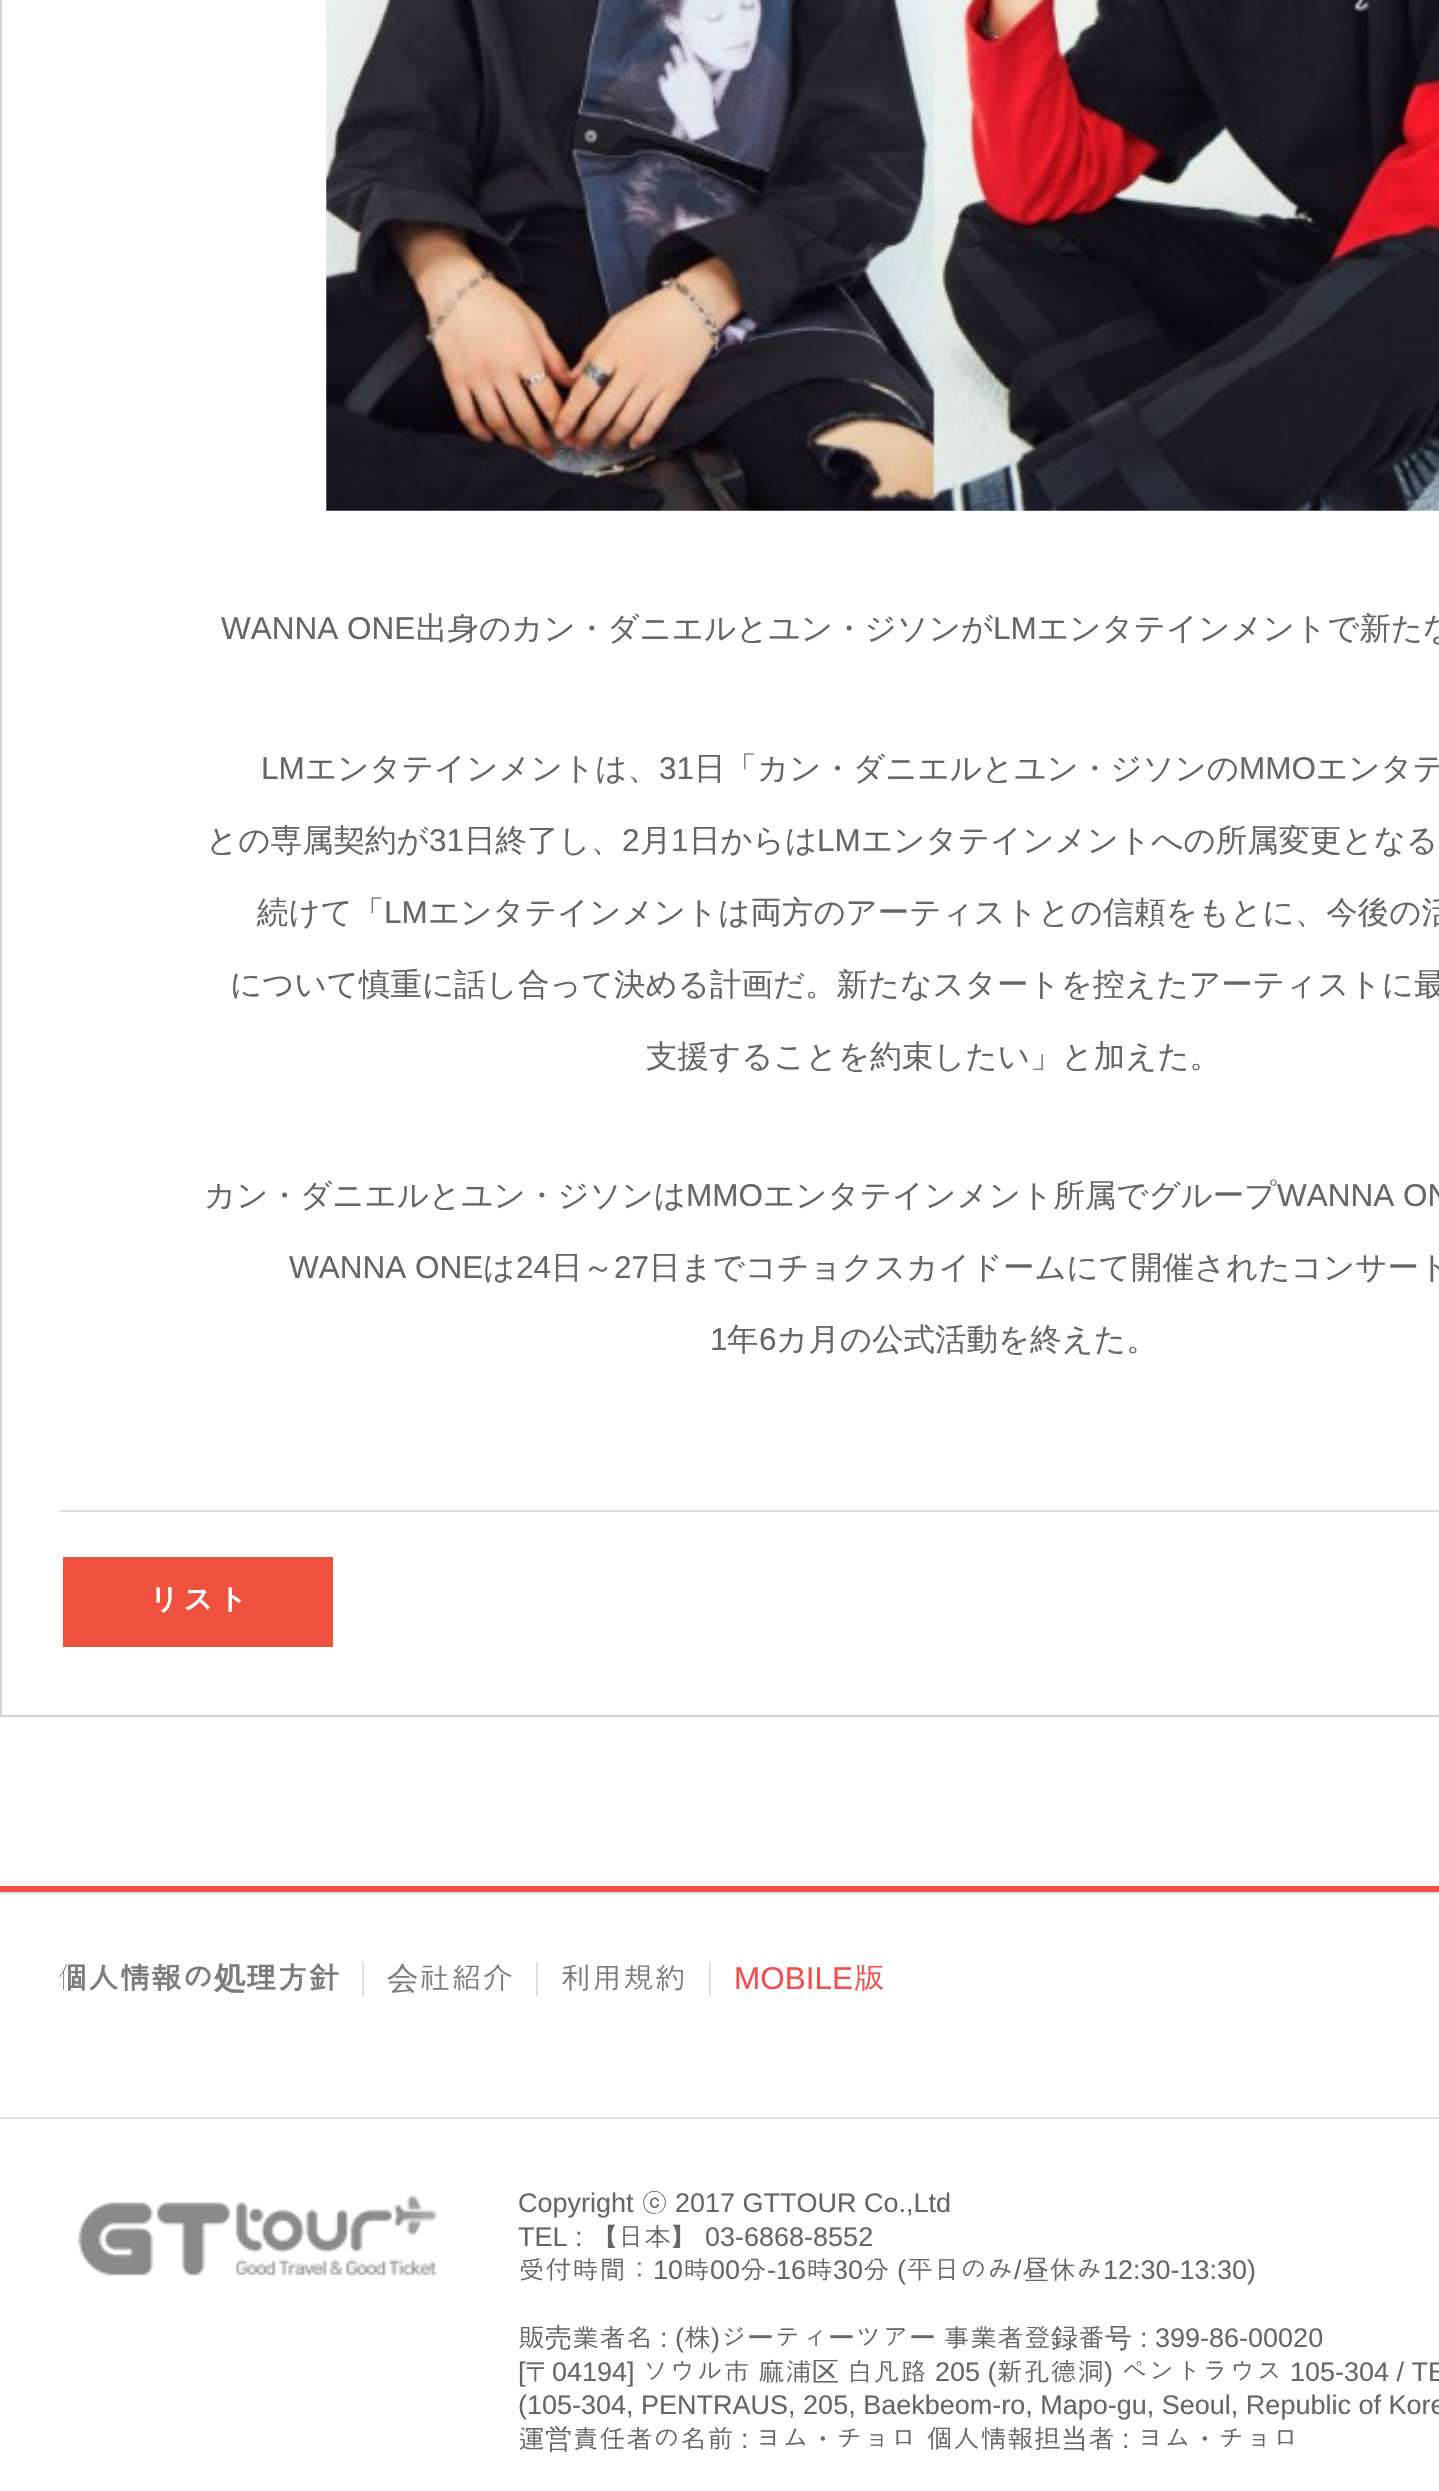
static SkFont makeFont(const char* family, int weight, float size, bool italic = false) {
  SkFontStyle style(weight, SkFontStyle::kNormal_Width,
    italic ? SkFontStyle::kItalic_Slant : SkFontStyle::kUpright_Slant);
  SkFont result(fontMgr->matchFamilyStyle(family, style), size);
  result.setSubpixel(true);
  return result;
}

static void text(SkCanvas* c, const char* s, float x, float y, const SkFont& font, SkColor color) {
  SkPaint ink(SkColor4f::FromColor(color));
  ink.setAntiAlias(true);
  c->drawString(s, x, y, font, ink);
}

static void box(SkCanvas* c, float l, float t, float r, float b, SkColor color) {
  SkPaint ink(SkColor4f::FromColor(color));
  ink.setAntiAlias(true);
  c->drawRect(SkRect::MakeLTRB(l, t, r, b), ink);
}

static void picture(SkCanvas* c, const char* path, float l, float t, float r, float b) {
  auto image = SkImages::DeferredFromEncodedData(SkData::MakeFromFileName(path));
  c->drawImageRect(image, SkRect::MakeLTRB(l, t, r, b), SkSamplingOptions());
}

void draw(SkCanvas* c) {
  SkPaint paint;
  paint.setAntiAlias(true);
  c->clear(0xffffffff);
  box(c, 1, 1714, 2, 1716, 0xfffafafa);
  box(c, 0, 1715, 1439, 1717, 0xffd2d2d2);
  paint.setColor(0xffd2d2d2);
  c->drawPath(SkPathBuilder().moveTo(0, 1717).lineTo(0, -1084).lineTo(2, -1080).lineTo(2, 1714).close().detach(), paint);
  box(c, 59, 1510, 1439, 1512, 0xffdedede);
  picture(c, "img_01.png", 326, 0, 1439, 511);
  SkFont face1 = makeFont("Liberation Sans", 400, 31.5f);
  text(c, "WANNA ONE", 221, 639, face1, 0xff666666);
  SkFont face2 = makeFont("WenQuanYi Zen Hei", 500, 31.5f);
  text(c, "出身のカン・ダニエルとユン・ジソンが", 416, 639, face2, 0xff666666);
  text(c, "LM", 993, 639, face1, 0xff666666);
  text(c, "エンタテインメントで新たな", 1037, 639, face2, 0xff666666);
  text(c, "LM", 261, 779, face1, 0xff666666);
  text(c, "エンタテインメントは、", 305, 779, face2, 0xff666666);
  text(c, "31", 659, 779, face1, 0xff666666);
  text(c, "日「カン・ダニエルとユン・ジソンの", 694, 779, face2, 0xff666666);
  text(c, "MMO", 1239, 779, face1, 0xff666666);
  text(c, "エンタテ", 1316, 779, face2, 0xff666666);
  text(c, "との専属契約が", 206, 851, face2, 0xff666666);
  text(c, "31", 429, 851, face1, 0xff666666);
  text(c, "日終了し、", 464, 851, face2, 0xff666666);
  text(c, "2", 622, 851, face1, 0xff666666);
  text(c, "月", 640, 851, face2, 0xff666666);
  text(c, "1", 671, 851, face1, 0xff666666);
  text(c, "日からは", 689, 851, face2, 0xff666666);
  text(c, "LM", 817, 851, face1, 0xff666666);
  text(c, "エンタテインメントへの所属変更となる", 861, 851, face2, 0xff666666);
  text(c, "続けて「", 257, 923, face2, 0xff666666);
  text(c, "LM", 384, 923, face1, 0xff666666);
  text(c, "エンタテインメントは両方のアーティストとの信頼をもとに、今後の活", 428, 923, face2, 0xff666666);
  text(c, "について慎重に話し合って決める計画だ。新たなスタートを控えたアーティストに最", 230, 995, face2, 0xff666666);
  text(c, "支援することを約束したい」と加えた。", 646, 1067, face2, 0xff666666);
  text(c, "カン・ダニエルとユン・ジソンは", 204, 1206, face2, 0xff666666);
  text(c, "MMO", 686, 1206, face1, 0xff666666);
  text(c, "エンタテインメント所属でグループ", 763, 1206, face2, 0xff666666);
  text(c, "WANNA ON", 1277, 1206, face1, 0xff666666);
  text(c, "WANNA ONE", 289, 1278, face1, 0xff666666);
  text(c, "は", 483, 1278, face2, 0xff666666);
  text(c, "24", 516, 1278, face1, 0xff666666);
  text(c, "日～", 551, 1278, face2, 0xff666666);
  text(c, "27", 614, 1278, face1, 0xff666666);
  text(c, "日までコチョクスカイドームにて開催されたコンサート", 649, 1278, face2, 0xff666666);
  text(c, "1", 710, 1350, face1, 0xff666666);
  text(c, "年", 727, 1350, face2, 0xff666666);
  text(c, "6", 759, 1350, face1, 0xff666666);
  text(c, "カ月の公式活動を終えた。", 776, 1350, face2, 0xff666666);
  box(c, 63, 1557, 333, 1647, 0xfff0513e);
  SkFont face3 = makeFont("Dotum", 700, 34);
  text(c, "リスト", 147, 1613, face3, 0xffffffff);
  box(c, 0, 1886, 1439, 1892, 0xfff24f4c);
  box(c, 0, 1892, 1439, 1894, 0xffe0e0e0);
  box(c, 0, 2117, 1439, 2119, 0xffe0e0e0);
  SkFont face4 = makeFont("Dotum", 700, 31.5f);
  text(c, "個人情報の", 56, 1989, face4, 0xff7c7c7c);
  SkFont face5 = makeFont("WenQuanYi Zen Hei", 700, 31.5f);
  text(c, "処", 214, 1989, face5, 0xff7c7c7c);
  text(c, "理方針", 245, 1989, face4, 0xff7c7c7c);
  box(c, 362, 1962, 364, 1996, 0xffe0e0e0);
  text(c, "会", 387, 1989, face2, 0xff7c7c7c);
  SkFont face6 = makeFont("Dotum", 400, 31.5f);
  text(c, "社紹介", 419, 1989, face6, 0xff7c7c7c);
  box(c, 536, 1962, 538, 1996, 0xffe0e0e0);
  text(c, "利用規約", 560, 1989, face6, 0xff7c7c7c);
  box(c, 709, 1962, 711, 1996, 0xffe0e0e0);
  text(c, "MOBILE", 734, 1989, face1, 0xfff24e4c);
  text(c, "版", 853, 1989, face6, 0xfff24e4c);
  picture(c, "img_02.png", 78, 2195, 437, 2276);
  SkFont face7 = makeFont("Liberation Sans", 400, 27);
  text(c, "Copyright", 518, 2212, face7, 0xff666666);
  SkFont face8 = makeFont("Dotum", 400, 27);
  text(c, "ⓒ", 641, 2212, face8, 0xff666666);
  text(c, "2017 GTTOUR Co.,Ltd", 675, 2212, face7, 0xff666666);
  text(c, "TEL :", 518, 2246, face7, 0xff666666);
  text(c, "【日本】", 590, 2246, face8, 0xff666666);
  text(c, "03-6868-8552", 705, 2246, face7, 0xff666666);
  text(c, "受付時間：", 518, 2279, face8, 0xff666666);
  text(c, "10", 653, 2279, face7, 0xff666666);
  text(c, "時", 683, 2279, face8, 0xff666666);
  text(c, "00", 710, 2279, face7, 0xff666666);
  text(c, "分", 740, 2279, face8, 0xff666666);
  text(c, "-16", 767, 2279, face7, 0xff666666);
  text(c, "時", 806, 2279, face8, 0xff666666);
  text(c, "30", 833, 2279, face7, 0xff666666);
  text(c, "分", 863, 2279, face8, 0xff666666);
  text(c, "(", 897, 2279, face7, 0xff666666);
  text(c, "平日のみ", 906, 2279, face8, 0xff666666);
  text(c, "/", 1014, 2279, face7, 0xff666666);
  SkFont face9 = makeFont("WenQuanYi Zen Hei", 500, 27);
  text(c, "昼", 1022, 2279, face9, 0xff666666);
  text(c, "休み", 1049, 2279, face8, 0xff666666);
  text(c, "12:30-13:30)", 1103, 2279, face7, 0xff666666);
  text(c, "販", 518, 2347, face8, 0xff666666);
  text(c, "売", 545, 2347, face9, 0xff666666);
  text(c, "業者名", 572, 2347, face8, 0xff666666);
  text(c, ": (", 660, 2347, face7, 0xff666666);
  text(c, "株 ジ", 684, 2347, face8, 0xff666666);
  text(c, "事業者登", 943, 2347, face8, 0xff666666);
  text(c, "録", 1051, 2347, face9, 0xff666666);
  text(c, "番", 1078, 2347, face8, 0xff666666);
  text(c, "号", 1105, 2347, face9, 0xff666666);
  text(c, ")", 711, 2347, face7, 0xff666666);
  text(c, "ー", 747, 2347, face9, 0xff666666);
  text(c, "ティ", 774, 2347, face8, 0xff666666);
  text(c, "ー", 828, 2347, face9, 0xff666666);
  text(c, "ツア", 855, 2347, face8, 0xff666666);
  text(c, "ー", 909, 2347, face9, 0xff666666);
  text(c, ": 399-86-00020", 1140, 2347, face7, 0xff666666);
  text(c, "[", 518, 2381, face7, 0xff666666);
  text(c, "〒", 525, 2381, face9, 0xff666666);
  text(c, "04194]", 552, 2381, face7, 0xff666666);
  text(c, "ソウル市", 642, 2381, face8, 0xff666666);
  text(c, "麻浦", 758, 2381, face8, 0xff666666);
  text(c, "区", 812, 2381, face9, 0xff666666);
  text(c, "白凡路", 846, 2381, face8, 0xff666666);
  text(c, "205 (", 935, 2381, face7, 0xff666666);
  text(c, "新孔德洞", 996, 2381, face8, 0xff666666);
  text(c, ")", 1104, 2381, face7, 0xff666666);
  text(c, "ペントラウス", 1121, 2381, face8, 0xff666666);
  text(c, "105-304 / TE", 1290, 2381, face7, 0xff666666);
  text(c, "(105-304, PENTRAUS, 205, Baekbeom-ro, Mapo-gu, Seoul, Republic of Kore", 518, 2414, face7, 0xff666666);
  text(c, "運", 518, 2448, face8, 0xff666666);
  text(c, "営", 545, 2448, face9, 0xff666666);
  text(c, "責任者の名前", 572, 2448, face8, 0xff666666);
  text(c, ":", 741, 2448, face7, 0xff666666);
  text(c, "ヨム", 755, 2448, face8, 0xff666666);
  text(c, "・", 809, 2448, face9, 0xff666666);
  text(c, "チョロ 個人情報担", 836, 2448, face8, 0xff666666);
  text(c, "当", 1061, 2448, face9, 0xff666666);
  text(c, "者", 1088, 2448, face8, 0xff666666);
  text(c, ":", 1122, 2448, face7, 0xff666666);
  text(c, "ヨム", 1137, 2448, face8, 0xff666666);
  text(c, "・", 1191, 2448, face9, 0xff666666);
  text(c, "チョロ", 1218, 2448, face8, 0xff666666);
}
